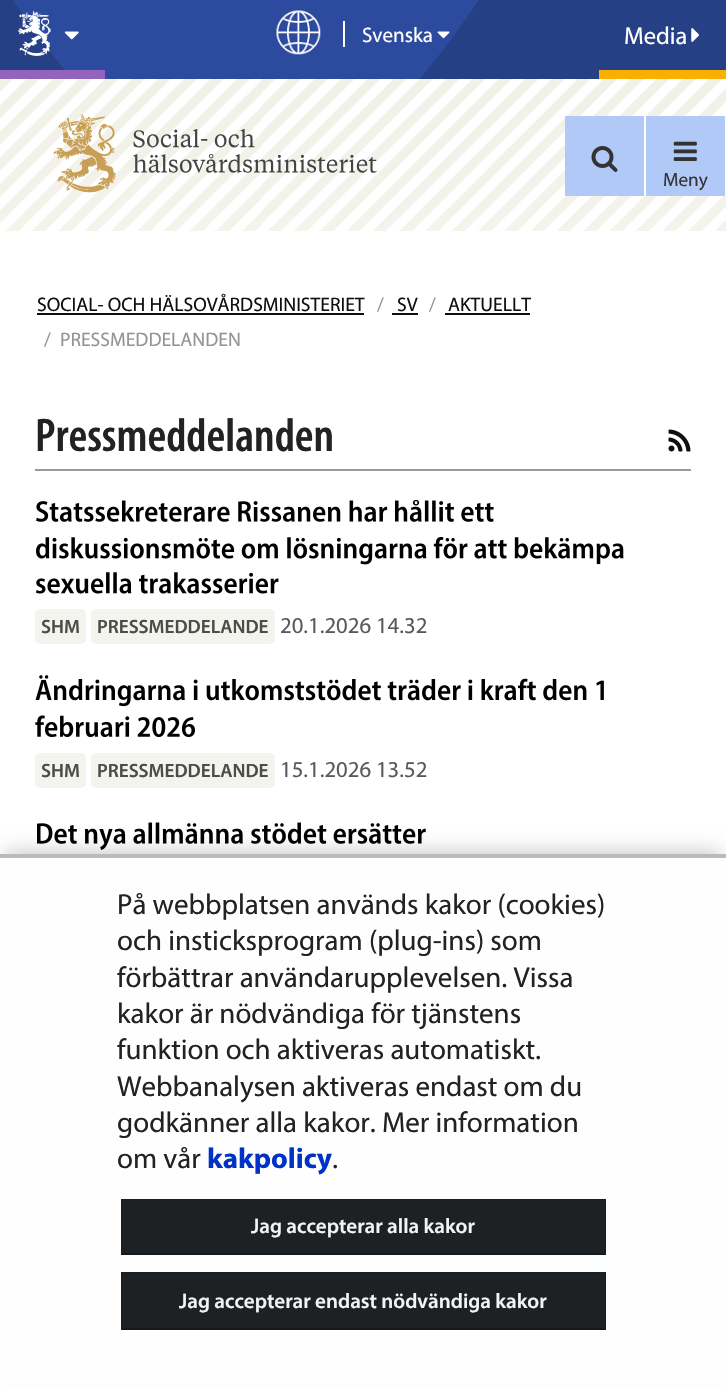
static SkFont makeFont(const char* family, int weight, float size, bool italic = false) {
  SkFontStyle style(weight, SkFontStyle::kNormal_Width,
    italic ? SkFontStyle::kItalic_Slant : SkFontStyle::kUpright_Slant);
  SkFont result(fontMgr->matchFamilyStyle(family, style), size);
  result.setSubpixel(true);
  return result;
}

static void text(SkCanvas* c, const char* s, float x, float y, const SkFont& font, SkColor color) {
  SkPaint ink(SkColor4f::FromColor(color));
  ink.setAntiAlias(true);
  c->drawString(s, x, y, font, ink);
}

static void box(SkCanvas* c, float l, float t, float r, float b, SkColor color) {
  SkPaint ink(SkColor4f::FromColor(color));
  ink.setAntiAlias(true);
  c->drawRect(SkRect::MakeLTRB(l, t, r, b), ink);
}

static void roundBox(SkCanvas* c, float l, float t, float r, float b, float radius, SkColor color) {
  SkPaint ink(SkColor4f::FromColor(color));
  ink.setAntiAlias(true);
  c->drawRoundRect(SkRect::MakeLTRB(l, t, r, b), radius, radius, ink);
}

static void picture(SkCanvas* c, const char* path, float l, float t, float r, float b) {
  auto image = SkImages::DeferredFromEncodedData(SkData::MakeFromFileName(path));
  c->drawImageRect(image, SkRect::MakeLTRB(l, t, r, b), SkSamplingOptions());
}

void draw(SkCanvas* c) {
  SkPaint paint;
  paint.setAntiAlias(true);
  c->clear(0xffffffff);
  picture(c, "img_01.png", 0, 0, 726, 79);
  picture(c, "img_02.png", 18, 10, 51, 56);
  box(c, 0, 70, 105, 79, 0xff9264bd);
  picture(c, "img_03.png", 64, 31, 79, 40);
  picture(c, "img_04.png", 276, 10, 321, 55);
  box(c, 343, 21, 345, 47, 0xffffffff);
  SkFont face1 = makeFont("Myriad", 400, 21);
  text(c, "Svenska", 362, 42, face1, 0xffffffff);
  picture(c, "img_05.png", 437, 31, 450, 39);
  box(c, 599, 70, 726, 79, 0xfff9b000);
  SkFont face2 = makeFont("Myriad", 400, 24.5f);
  text(c, "Media", 624, 44, face2, 0xffffffff);
  picture(c, "img_06.png", 691, 28, 699, 42);
  picture(c, "img_07.png", 0, 79, 726, 231);
  picture(c, "img_08.png", 53, 114, 377, 193);
  box(c, 565, 116, 644, 196, 0xffb0c9f6);
  box(c, 644, 116, 646, 196, 0xffffffff);
  picture(c, "img_09.png", 591, 146, 618, 172);
  box(c, 646, 116, 725, 196, 0xffb0c9f6);
  box(c, 725, 116, 726, 196, 0xffffffff);
  picture(c, "img_10.png", 673, 141, 697, 161);
  SkFont face3 = makeFont("Myriad", 400, 19.25f);
  text(c, "Meny", 663, 186, face3, 0xff333333);
  SkFont face4 = makeFont("Myriad", 400, 19.6f);
  text(c, "SOCIAL- OCH HÄLSOVÅRDSMINISTERIET", 37, 311, face4, 0xff0f0f0f);
  box(c, 37, 313, 364, 315, 0xff0f0f0f);
  text(c, "/", 377, 311, face4, 0xff949494);
  text(c, "SV", 397, 311, face4, 0xff0f0f0f);
  box(c, 392, 313, 418, 315, 0xff0f0f0f);
  text(c, "/", 429, 311, face4, 0xff949494);
  text(c, "AKTUELLT", 448, 311, face4, 0xff0f0f0f);
  box(c, 445, 313, 530, 315, 0xff0f0f0f);
  text(c, "/", 44, 346, face4, 0xff949494);
  text(c, "PRESSMEDDELANDEN", 60, 346, face4, 0xff949494);
  box(c, 35, 469, 691, 471, 0xff999999);
  SkFont face5 = makeFont("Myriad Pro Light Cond", 600, 47.5f);
  text(c, "Pressmeddelanden", 35, 451, face5, 0xff222222);
  picture(c, "img_11.png", 668, 429, 691, 452);
  picture(c, "img_12.png", 36, 499, 494, 522);
  picture(c, "img_13.png", 36, 537, 624, 565);
  picture(c, "img_14.png", 36, 572, 279, 594);
  roundBox(c, 35, 609, 86, 644, 5, 0xfff5f3ed);
  SkFont face6 = makeFont("Myriad", 600, 19.25f);
  text(c, "SHM", 41, 633, face6, 0xff4c4d4a);
  roundBox(c, 91, 609, 275, 644, 5, 0xfff5f3ed);
  text(c, "PRESSMEDDELANDE", 97, 633, face6, 0xff4c4d4a);
  SkFont face7 = makeFont("Myriad", 400, 22.75f);
  text(c, "20.1.2026 14.32", 280, 633, face7, 0xff595959);
  picture(c, "img_15.png", 35, 675, 604, 707);
  picture(c, "img_16.png", 35, 715, 195, 737);
  roundBox(c, 35, 753, 86, 788, 5, 0xfff5f3ed);
  text(c, "SHM", 41, 777, face6, 0xff4c4d4a);
  roundBox(c, 91, 753, 275, 788, 5, 0xfff5f3ed);
  text(c, "PRESSMEDDELANDE", 97, 777, face6, 0xff4c4d4a);
  text(c, "15.1.2026 13.52", 280, 777, face7, 0xff595959);
  picture(c, "img_17.png", 37, 822, 426, 850);
  paint.setColor(0x33000000);
  paint.setMaskFilter(SkMaskFilter::MakeBlur(kNormal_SkBlurStyle, 9));
  c->drawRect(SkRect::MakeLTRB(5, 851, 721, 1372), paint);
  paint.setMaskFilter(nullptr);
  box(c, 0, 858, 726, 1385, 0xfffefefe);
  box(c, 0, 854, 726, 858, 0xffbababa);
  SkFont face8 = makeFont("Myriad", 400, 29);
  text(c, "På webbplatsen används kakor (cookies)", 117, 914, face8, 0xff222222);
  text(c, "och insticksprogram (plug-ins) som", 117, 950, face8, 0xff222222);
  text(c, "förbättrar användarupplevelsen. Vissa", 117, 987, face8, 0xff222222);
  text(c, "kakor är nödvändiga för tjänstens", 117, 1023, face8, 0xff222222);
  text(c, "funktion och aktiveras automatiskt.", 117, 1059, face8, 0xff222222);
  text(c, "Webbanalysen aktiveras endast om du", 117, 1096, face8, 0xff222222);
  text(c, "godkänner alla kakor. Mer information", 117, 1132, face8, 0xff222222);
  text(c, "om vår", 117, 1168, face8, 0xff222222);
  SkFont face9 = makeFont("Myriad", 700, 29);
  text(c, "kakpolicy", 207, 1168, face9, 0xff0032c8);
  text(c, ".", 332, 1168, face8, 0xff222222);
  box(c, 121, 1199, 606, 1255, 0xff1d2124);
  paint.setColor(0xff1a1e20);
  c->drawPath(SkPathBuilder().moveTo(121, 1199).lineTo(606, 1199).lineTo(604, 1200).lineTo(122, 1200).close().detach(), paint);
  c->drawPath(SkPathBuilder().moveTo(606, 1199).lineTo(606, 1255).lineTo(604, 1253).lineTo(604, 1200).close().detach(), paint);
  paint.setColor(0xff16191b);
  c->drawPath(SkPathBuilder().moveTo(606, 1255).lineTo(121, 1255).lineTo(122, 1253).lineTo(604, 1253).close().detach(), paint);
  paint.setColor(0xff1a1e20);
  c->drawPath(SkPathBuilder().moveTo(121, 1255).lineTo(121, 1199).lineTo(122, 1200).lineTo(122, 1253).close().detach(), paint);
  SkFont face10 = makeFont("Myriad", 600, 21);
  text(c, "Jag accepterar alla kakor", 251, 1233, face10, 0xfff4f3f4);
  box(c, 121, 1272, 606, 1330, 0xff1d2124);
  c->drawPath(SkPathBuilder().moveTo(121, 1272).lineTo(606, 1272).lineTo(604, 1274).lineTo(122, 1274).close().detach(), paint);
  c->drawPath(SkPathBuilder().moveTo(606, 1272).lineTo(606, 1330).lineTo(604, 1328).lineTo(604, 1274).close().detach(), paint);
  paint.setColor(0xff16191b);
  c->drawPath(SkPathBuilder().moveTo(606, 1330).lineTo(121, 1330).lineTo(122, 1328).lineTo(604, 1328).close().detach(), paint);
  paint.setColor(0xff1a1e20);
  c->drawPath(SkPathBuilder().moveTo(121, 1330).lineTo(121, 1272).lineTo(122, 1274).lineTo(122, 1328).close().detach(), paint);
  text(c, "Jag accepterar endast nödvändiga kakor", 179, 1308, face10, 0xfff4f3f4);
}
